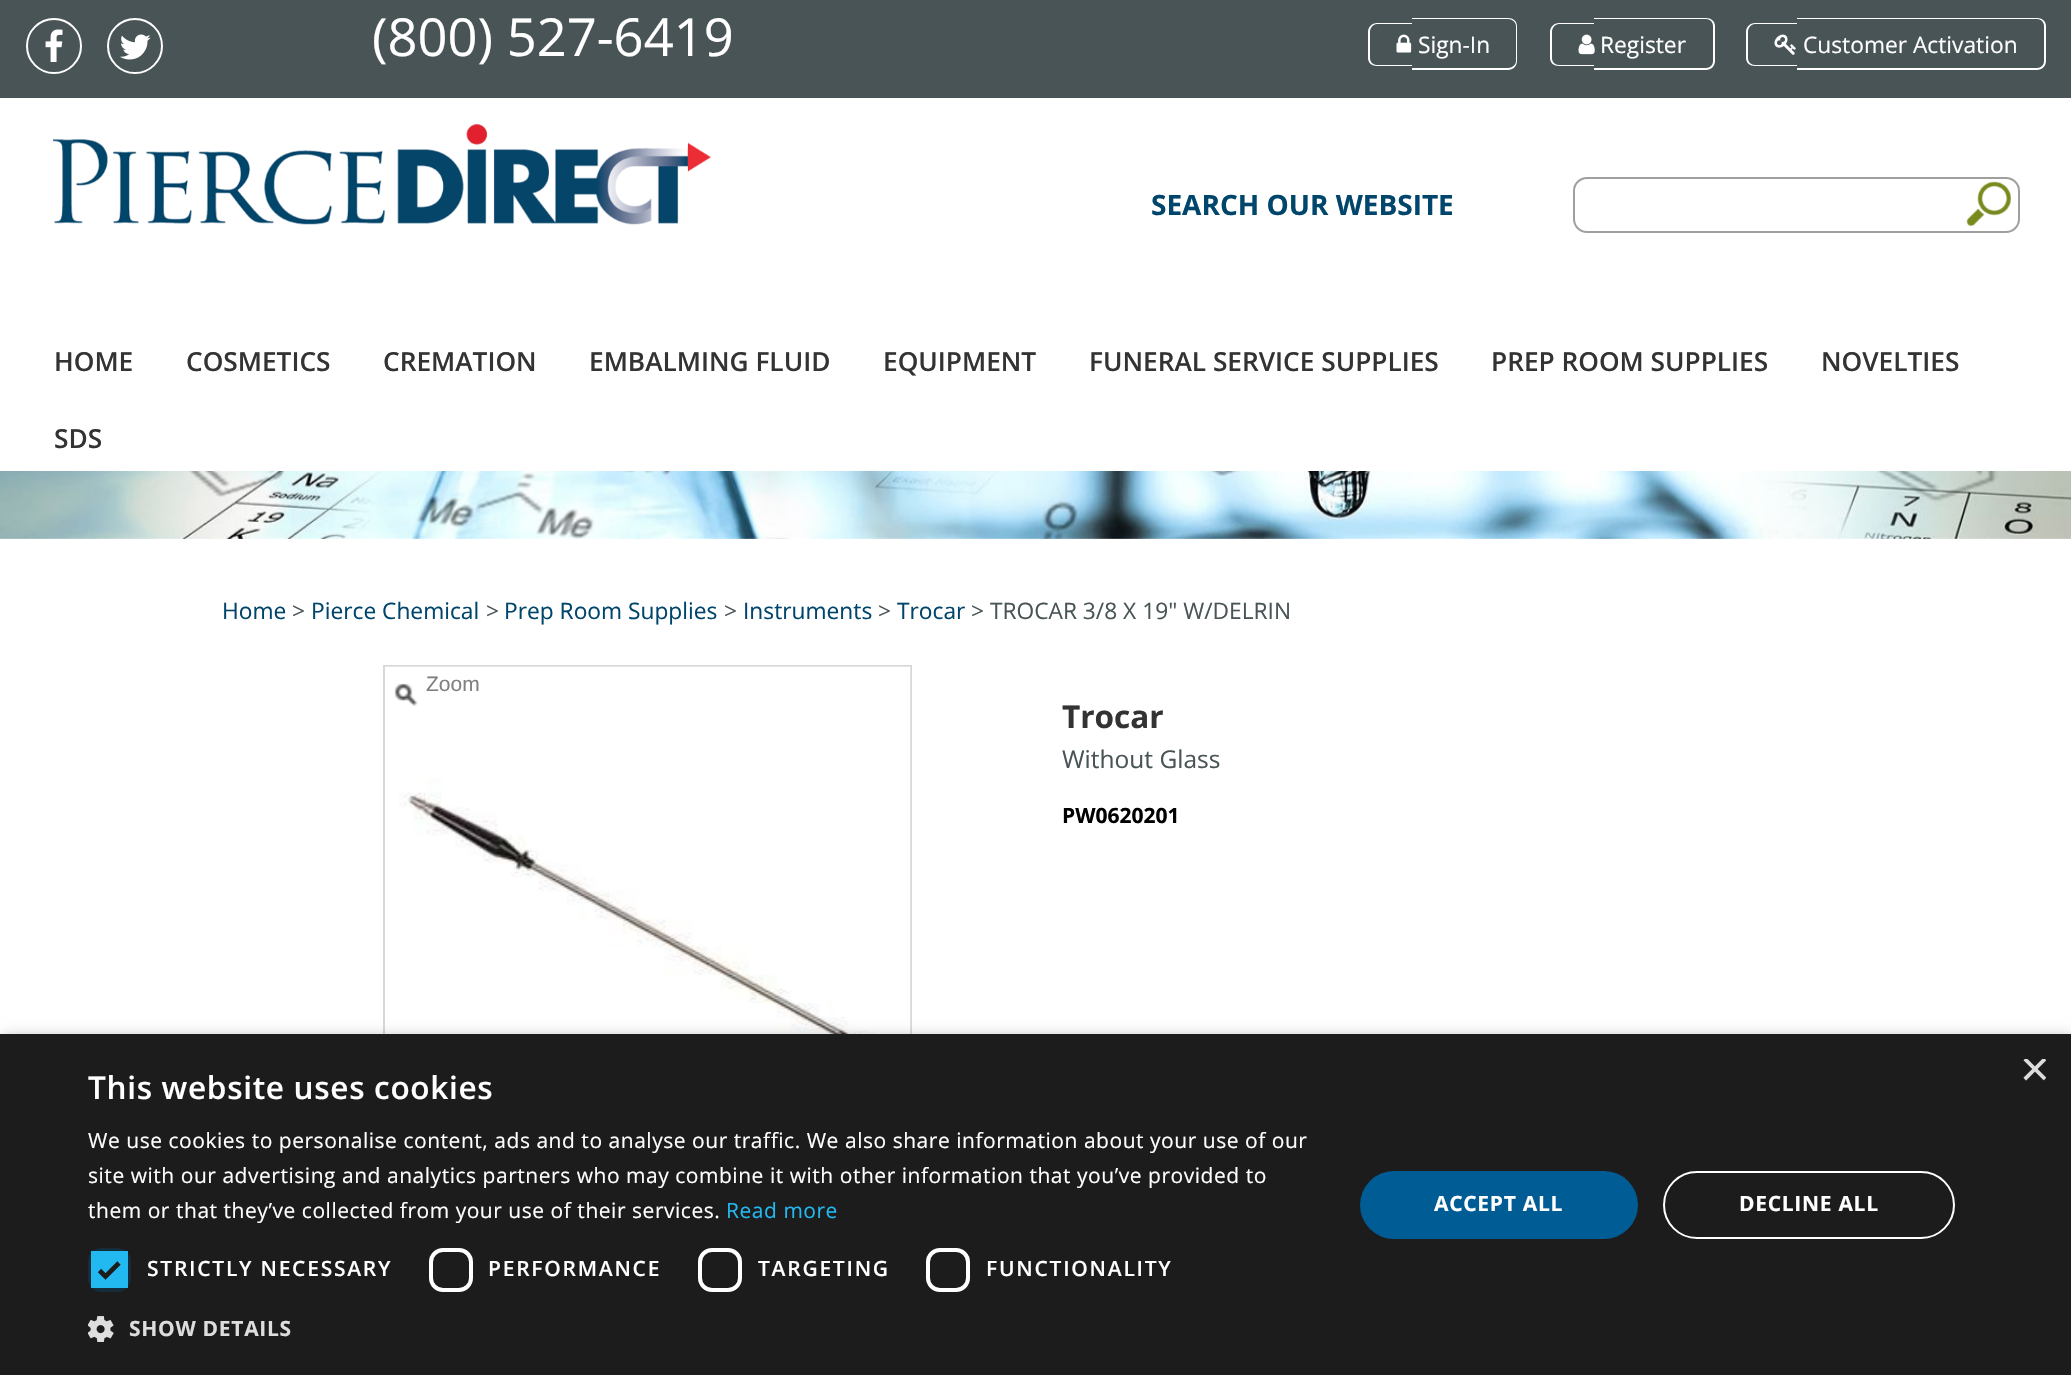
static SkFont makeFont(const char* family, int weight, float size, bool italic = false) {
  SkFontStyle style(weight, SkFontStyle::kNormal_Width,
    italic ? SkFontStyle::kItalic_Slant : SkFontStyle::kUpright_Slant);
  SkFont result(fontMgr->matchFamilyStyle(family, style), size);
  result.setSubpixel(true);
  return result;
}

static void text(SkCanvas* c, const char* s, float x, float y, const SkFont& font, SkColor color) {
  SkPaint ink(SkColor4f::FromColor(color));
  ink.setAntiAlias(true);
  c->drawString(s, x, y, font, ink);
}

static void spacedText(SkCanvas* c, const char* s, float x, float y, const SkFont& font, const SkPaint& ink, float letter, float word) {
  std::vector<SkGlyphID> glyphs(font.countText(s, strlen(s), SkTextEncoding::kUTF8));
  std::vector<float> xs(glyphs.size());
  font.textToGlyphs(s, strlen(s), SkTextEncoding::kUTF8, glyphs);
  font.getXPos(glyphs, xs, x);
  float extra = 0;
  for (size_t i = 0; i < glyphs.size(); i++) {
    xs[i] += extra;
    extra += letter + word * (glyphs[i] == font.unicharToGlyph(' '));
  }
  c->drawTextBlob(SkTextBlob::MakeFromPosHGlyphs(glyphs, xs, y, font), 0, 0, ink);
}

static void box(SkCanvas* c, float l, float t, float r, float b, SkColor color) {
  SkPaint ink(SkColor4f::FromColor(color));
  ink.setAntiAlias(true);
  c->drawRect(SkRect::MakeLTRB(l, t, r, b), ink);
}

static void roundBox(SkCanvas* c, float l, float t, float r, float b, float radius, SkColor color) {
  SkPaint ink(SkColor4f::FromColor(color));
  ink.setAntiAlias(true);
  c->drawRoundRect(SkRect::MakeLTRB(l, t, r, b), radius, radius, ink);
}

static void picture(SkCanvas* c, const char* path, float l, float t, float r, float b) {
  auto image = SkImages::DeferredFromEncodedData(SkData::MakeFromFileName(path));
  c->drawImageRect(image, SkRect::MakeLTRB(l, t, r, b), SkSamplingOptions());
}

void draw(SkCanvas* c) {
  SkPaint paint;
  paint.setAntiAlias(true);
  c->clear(0xffffffff);
  box(c, 0, 0, 2071, 98, 0xff495456);
  paint.setStyle(SkPaint::kStroke_Style);
  paint.setStrokeWidth(2);
  paint.setColor(0xffffffff);
  c->drawCircle(54, 46, 27, paint);
  picture(c, "img_01.png", 45, 29, 63, 62);
  c->drawCircle(135, 46, 27, paint);
  picture(c, "img_02.png", 120, 34, 151, 60);
  SkFont face1 = makeFont("Open Sans", 400, 52.5f);
  text(c, "(800) 527-6419", 372, 56, face1, 0xffffffff);
  paint.setStyle(SkPaint::kFill_Style);
  c->drawPath(SkPathBuilder(SkPathFillType::kEvenOdd).moveTo(1377, 23).lineTo(1412, 23).lineTo(1412, 66).lineTo(1377, 66).cubicTo(1372, 66, 1368, 63, 1368, 58).lineTo(1368, 32).cubicTo(1368, 27, 1372, 23, 1377, 23).close().moveTo(1377, 24).lineTo(1412, 24).lineTo(1412, 65).lineTo(1377, 65).cubicTo(1373, 65, 1370, 62, 1370, 58).lineTo(1370, 32).cubicTo(1370, 28, 1373, 24, 1377, 24).close().detach(), paint);
  c->drawPath(SkPathBuilder(SkPathFillType::kEvenOdd).moveTo(1412, 18).lineTo(1508, 18).cubicTo(1513, 18, 1517, 21, 1517, 26).lineTo(1517, 61).cubicTo(1517, 66, 1513, 70, 1508, 70).lineTo(1412, 70).close().moveTo(1412, 19).lineTo(1508, 19).cubicTo(1512, 19, 1516, 22, 1516, 26).lineTo(1516, 61).cubicTo(1516, 65, 1512, 68, 1508, 68).lineTo(1412, 68).close().detach(), paint);
  picture(c, "img_03.png", 1396, 34, 1412, 53);
  SkFont face2 = makeFont("Open Sans", 400, 22.75f);
  text(c, "Sign-In", 1418, 53, face2, 0xffffffff);
  c->drawPath(SkPathBuilder(SkPathFillType::kEvenOdd).moveTo(1559, 23).lineTo(1594, 23).lineTo(1594, 66).lineTo(1559, 66).cubicTo(1554, 66, 1550, 63, 1550, 58).lineTo(1550, 32).cubicTo(1550, 27, 1554, 23, 1559, 23).close().moveTo(1559, 24).lineTo(1594, 24).lineTo(1594, 65).lineTo(1559, 65).cubicTo(1555, 65, 1552, 62, 1552, 58).lineTo(1552, 32).cubicTo(1552, 28, 1555, 24, 1559, 24).close().detach(), paint);
  c->drawPath(SkPathBuilder(SkPathFillType::kEvenOdd).moveTo(1594, 18).lineTo(1706, 18).cubicTo(1711, 18, 1715, 21, 1715, 26).lineTo(1715, 61).cubicTo(1715, 66, 1711, 70, 1706, 70).lineTo(1594, 70).close().moveTo(1594, 19).lineTo(1706, 19).cubicTo(1710, 19, 1713, 22, 1713, 26).lineTo(1713, 61).cubicTo(1713, 65, 1710, 68, 1706, 68).lineTo(1594, 68).close().detach(), paint);
  picture(c, "img_04.png", 1578, 34, 1595, 55);
  text(c, "Register", 1600, 53, face2, 0xffffffff);
  c->drawPath(SkPathBuilder(SkPathFillType::kEvenOdd).moveTo(1755, 23).lineTo(1797, 23).lineTo(1797, 66).lineTo(1755, 66).cubicTo(1750, 66, 1746, 63, 1746, 58).lineTo(1746, 32).cubicTo(1746, 27, 1750, 23, 1755, 23).close().moveTo(1755, 24).lineTo(1797, 24).lineTo(1797, 65).lineTo(1755, 65).cubicTo(1751, 65, 1748, 62, 1748, 58).lineTo(1748, 32).cubicTo(1748, 28, 1751, 24, 1755, 24).close().detach(), paint);
  c->drawPath(SkPathBuilder(SkPathFillType::kEvenOdd).moveTo(1797, 18).lineTo(2037, 18).cubicTo(2042, 18, 2046, 21, 2046, 26).lineTo(2046, 61).cubicTo(2046, 66, 2042, 70, 2037, 70).lineTo(1797, 70).close().moveTo(1797, 19).lineTo(2037, 19).cubicTo(2041, 19, 2044, 22, 2044, 26).lineTo(2044, 61).cubicTo(2044, 65, 2041, 68, 2037, 68).lineTo(1797, 68).close().detach(), paint);
  picture(c, "img_05.png", 1774, 34, 1796, 55);
  text(c, "Customer Activation", 1803, 53, face2, 0xffffffff);
  picture(c, "img_06.png", 53, 124, 711, 225);
  SkFont face3 = makeFont("Open Sans", 700, 28);
  text(c, "SEARCH OUR WEBSITE", 1151, 215, face3, 0xff00456b);
  paint.setStyle(SkPaint::kStroke_Style);
  paint.setColor(0xff9f9f9f);
  c->drawRoundRect(SkRect::MakeLTRB(1574, 178, 2019, 232), 13, 13, paint);
  picture(c, "img_07.png", 1966, 181, 2011, 226);
  SkFont face4 = makeFont("Open Sans", 600, 26.25f);
  text(c, "HOME", 54, 371, face4, 0xff333333);
  text(c, "COSMETICS", 186, 371, face4, 0xff333333);
  text(c, "CREMATION", 383, 371, face4, 0xff333333);
  text(c, "EMBALMING FLUID", 589, 371, face4, 0xff333333);
  text(c, "EQUIPMENT", 883, 371, face4, 0xff333333);
  text(c, "FUNERAL SERVICE SUPPLIES", 1089, 371, face4, 0xff333333);
  text(c, "PREP ROOM SUPPLIES", 1491, 371, face4, 0xff333333);
  text(c, "NOVELTIES", 1821, 371, face4, 0xff333333);
  text(c, "SDS", 54, 448, face4, 0xff333333);
  picture(c, "img_08.png", 0, 471, 2071, 539);
  text(c, "Home", 222, 619, face2, 0xff00456b);
  text(c, ">", 292, 619, face2, 0xff495456);
  text(c, "Pierce Chemical", 311, 619, face2, 0xff00456b);
  text(c, ">", 486, 619, face2, 0xff495456);
  text(c, "Prep Room Supplies", 504, 619, face2, 0xff00456b);
  text(c, ">", 724, 619, face2, 0xff495456);
  text(c, "Instruments", 743, 619, face2, 0xff00456b);
  text(c, ">", 878, 619, face2, 0xff495456);
  text(c, "Trocar", 897, 619, face2, 0xff00456b);
  text(c, "> TROCAR 3/8 X 19\" W/DELRIN", 971, 619, face2, 0xff495456);
  paint.setColor(0xffd8d8d8);
  c->drawRect(SkRect::MakeLTRB(384, 666, 911, 1193), paint);
  picture(c, "img_09.png", 385, 666, 911, 1034);
  picture(c, "img_10.png", 394, 683, 418, 706);
  SkFont face5 = makeFont("Liberation Sans", 400, 21);
  text(c, "Zoom", 426, 691, face5, 0xff808080);
  SkFont face6 = makeFont("Open Sans", 700, 31.5f);
  text(c, "Trocar", 1062, 728, face6, 0xff333333);
  SkFont face7 = makeFont("Open Sans", 400, 24.5f);
  text(c, "Without Glass", 1062, 768, face7, 0xff495456);
  SkFont face8 = makeFont("Open Sans", 700, 21);
  text(c, "PW0620201", 1062, 823, face8, 0xff000000);
  paint.setStyle(SkPaint::kFill_Style);
  paint.setColor(0x59000000);
  paint.setMaskFilter(SkMaskFilter::MakeBlur(kNormal_SkBlurStyle, 7));
  c->drawRect(SkRect::MakeLTRB(2, 1038, 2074, 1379), paint);
  paint.setMaskFilter(nullptr);
  box(c, 0, 1034, 2071, 1375, 0xff1c1c1c);
  c->save();
  c->clipRect(SkRect::MakeLTRB(2020, 1059, 2046, 1085));
  SkFont face9 = makeFont("Liberation Sans", 400, 51);
  text(c, "×", 2020, 1086, face9, 0xffdddddd);
  c->restore();
  SkFont face10 = makeFont("Open Sans", 600, 31.5f);
  paint.setColor(0xffffffff);
  spacedText(c, "This website uses cookies", 88, 1099, face10, paint, 0.7f, 0);
  SkFont face11 = makeFont("Open Sans", 400, 21);
  spacedText(c, "We use cookies to personalise content, ads and to analyse our traffic. We also share information about your use of our", 88, 1148, face11, paint, 0.53f, 0);
  spacedText(c, "site with our advertising and analytics partners who may combine it with other information that you’ve provided to", 88, 1183, face11, paint, 0.53f, 0);
  spacedText(c, "them or that they’ve collected from your use of their services.", 88, 1218, face11, paint, 0.53f, 0);
  paint.setColor(0xff22b8f0);
  spacedText(c, "Read more", 726, 1218, face11, paint, 0.53f, 0);
  roundBox(c, 88, 1248, 131, 1292, 14, 0xff152d3b);
  box(c, 91, 1251, 128, 1288, 0xff22b8f0);
  paint.setStyle(SkPaint::kStroke_Style);
  paint.setStrokeWidth(4.6f);
  paint.setColor(0xff1c1c1c);
  c->drawPath(SkPathBuilder().moveTo(99.5f, 1270.5f).lineTo(105.5f, 1276.5f).lineTo(119, 1263).detach(), paint);
  SkFont face12 = makeFont("Open Sans", 600, 21);
  paint.setStyle(SkPaint::kFill_Style);
  paint.setColor(0xffffffff);
  spacedText(c, "STRICTLY NECESSARY", 147, 1276, face12, paint, 1.75f, 0);
  paint.setStyle(SkPaint::kStroke_Style);
  paint.setStrokeWidth(4);
  c->drawRoundRect(SkRect::MakeLTRB(431, 1250, 471, 1290), 12, 12, paint);
  paint.setStyle(SkPaint::kFill_Style);
  spacedText(c, "PERFORMANCE", 488, 1276, face12, paint, 1.75f, 0);
  paint.setStyle(SkPaint::kStroke_Style);
  c->drawRoundRect(SkRect::MakeLTRB(700, 1250, 740, 1290), 12, 12, paint);
  paint.setStyle(SkPaint::kFill_Style);
  spacedText(c, "TARGETING", 758, 1276, face12, paint, 1.75f, 0);
  paint.setStyle(SkPaint::kStroke_Style);
  c->drawRoundRect(SkRect::MakeLTRB(928, 1250, 968, 1290), 12, 12, paint);
  paint.setStyle(SkPaint::kFill_Style);
  spacedText(c, "FUNCTIONALITY", 986, 1276, face12, paint, 1.75f, 0);
  picture(c, "img_11.png", 88, 1316, 114, 1342);
  paint.setColor(0xffdddddd);
  spacedText(c, "SHOW DETAILS", 129, 1336, face8, paint, 0.7f, 0);
  roundBox(c, 1360, 1171, 1638, 1239, 34, 0xff005c94);
  paint.setColor(0xffffffff);
  spacedText(c, "ACCEPT ALL", 1434, 1211, face8, paint, 0.7f, 0);
  paint.setStyle(SkPaint::kStroke_Style);
  paint.setStrokeWidth(2);
  c->drawRoundRect(SkRect::MakeLTRB(1664, 1172, 1954, 1238), 33, 33, paint);
  paint.setStyle(SkPaint::kFill_Style);
  spacedText(c, "DECLINE ALL", 1739, 1211, face8, paint, 0.7f, 0);
}
